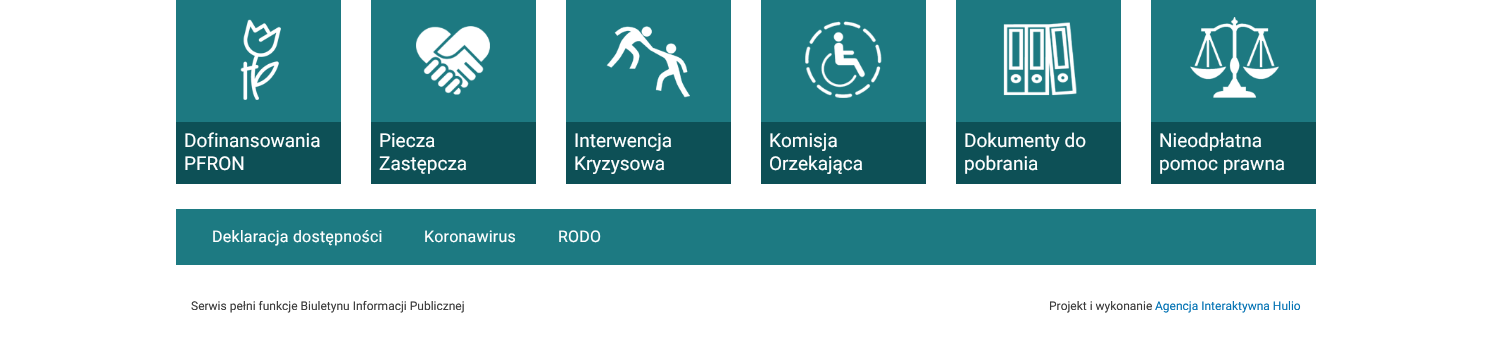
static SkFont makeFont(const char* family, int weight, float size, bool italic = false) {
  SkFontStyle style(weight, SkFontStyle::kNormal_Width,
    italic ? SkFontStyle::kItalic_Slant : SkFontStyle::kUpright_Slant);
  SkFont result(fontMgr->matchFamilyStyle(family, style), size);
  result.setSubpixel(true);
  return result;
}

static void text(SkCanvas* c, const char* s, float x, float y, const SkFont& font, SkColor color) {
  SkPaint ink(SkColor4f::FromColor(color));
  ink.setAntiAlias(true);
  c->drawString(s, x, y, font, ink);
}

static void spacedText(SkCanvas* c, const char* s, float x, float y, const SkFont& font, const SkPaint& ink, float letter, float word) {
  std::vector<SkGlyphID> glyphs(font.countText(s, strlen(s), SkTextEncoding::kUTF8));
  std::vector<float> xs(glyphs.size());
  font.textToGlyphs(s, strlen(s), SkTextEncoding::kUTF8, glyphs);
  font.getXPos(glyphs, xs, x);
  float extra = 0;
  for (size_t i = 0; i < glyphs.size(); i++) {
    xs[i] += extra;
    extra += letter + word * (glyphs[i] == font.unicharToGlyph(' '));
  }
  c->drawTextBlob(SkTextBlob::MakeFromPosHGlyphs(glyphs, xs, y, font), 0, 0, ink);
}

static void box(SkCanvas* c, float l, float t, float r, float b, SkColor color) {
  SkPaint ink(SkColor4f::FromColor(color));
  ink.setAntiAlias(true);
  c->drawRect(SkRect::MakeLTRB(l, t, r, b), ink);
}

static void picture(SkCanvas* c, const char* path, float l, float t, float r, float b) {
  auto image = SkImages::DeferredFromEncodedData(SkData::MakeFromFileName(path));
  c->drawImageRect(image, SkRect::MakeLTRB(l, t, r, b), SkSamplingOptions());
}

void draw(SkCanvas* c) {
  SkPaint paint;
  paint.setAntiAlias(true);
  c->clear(0xffffffff);
  box(c, 176, 0, 341, 122, 0xff1d7981);
  picture(c, "img_01.png", 240, 19, 281, 100);
  box(c, 176, 122, 341, 184, 0xff0d5056);
  SkFont face1 = makeFont("Roboto", 400, 19);
  text(c, "Dofinansowania", 184, 147, face1, 0xffffffff);
  text(c, "PFRON", 184, 170, face1, 0xffffffff);
  box(c, 371, 0, 536, 122, 0xff1d7981);
  picture(c, "img_02.png", 416, 26, 490, 95);
  box(c, 371, 122, 536, 184, 0xff0d5056);
  text(c, "Piecza", 379, 147, face1, 0xffffffff);
  text(c, "Zastępcza", 379, 170, face1, 0xffffffff);
  box(c, 566, 0, 731, 122, 0xff1d7981);
  picture(c, "img_03.png", 606, 26, 690, 98);
  box(c, 566, 122, 731, 184, 0xff0d5056);
  text(c, "Interwencja", 574, 147, face1, 0xffffffff);
  text(c, "Kryzysowa", 574, 170, face1, 0xffffffff);
  box(c, 761, 0, 926, 122, 0xff1d7981);
  picture(c, "img_04.png", 805, 21, 882, 98);
  box(c, 761, 122, 926, 184, 0xff0d5056);
  text(c, "Komisja", 769, 147, face1, 0xffffffff);
  text(c, "Orzekająca", 769, 170, face1, 0xffffffff);
  box(c, 956, 0, 1121, 122, 0xff1d7981);
  picture(c, "img_05.png", 1003, 22, 1077, 96);
  box(c, 956, 122, 1121, 184, 0xff0d5056);
  text(c, "Dokumenty do", 964, 147, face1, 0xffffffff);
  text(c, "pobrania", 964, 170, face1, 0xffffffff);
  box(c, 1151, 0, 1316, 122, 0xff1d7981);
  picture(c, "img_06.png", 1190, 17, 1279, 98);
  box(c, 1151, 122, 1316, 184, 0xff0d5056);
  text(c, "Nieodpłatna", 1159, 147, face1, 0xffffffff);
  text(c, "pomoc prawna", 1159, 170, face1, 0xffffffff);
  box(c, 176, 209, 1316, 265, 0xff1d7a82);
  SkFont face2 = makeFont("Roboto", 400, 16);
  paint.setColor(0xffffffff);
  spacedText(c, "Deklaracja dostępności", 212, 242, face2, paint, 0.2f, 0);
  spacedText(c, "Koronawirus", 424, 242, face2, paint, 0.2f, 0);
  spacedText(c, "RODO", 558, 242, face2, paint, 0.2f, 0);
  SkFont face3 = makeFont("Roboto", 400, 12);
  text(c, "Serwis pełni funkcje Biuletynu Informacji Publicznej", 191, 310, face3, 0xff3b3b3b);
  text(c, "Projekt i wykonanie", 1049, 310, face3, 0xff3b3b3b);
  text(c, "Agencja Interaktywna Hulio", 1155, 310, face3, 0xff0071b3);
}
